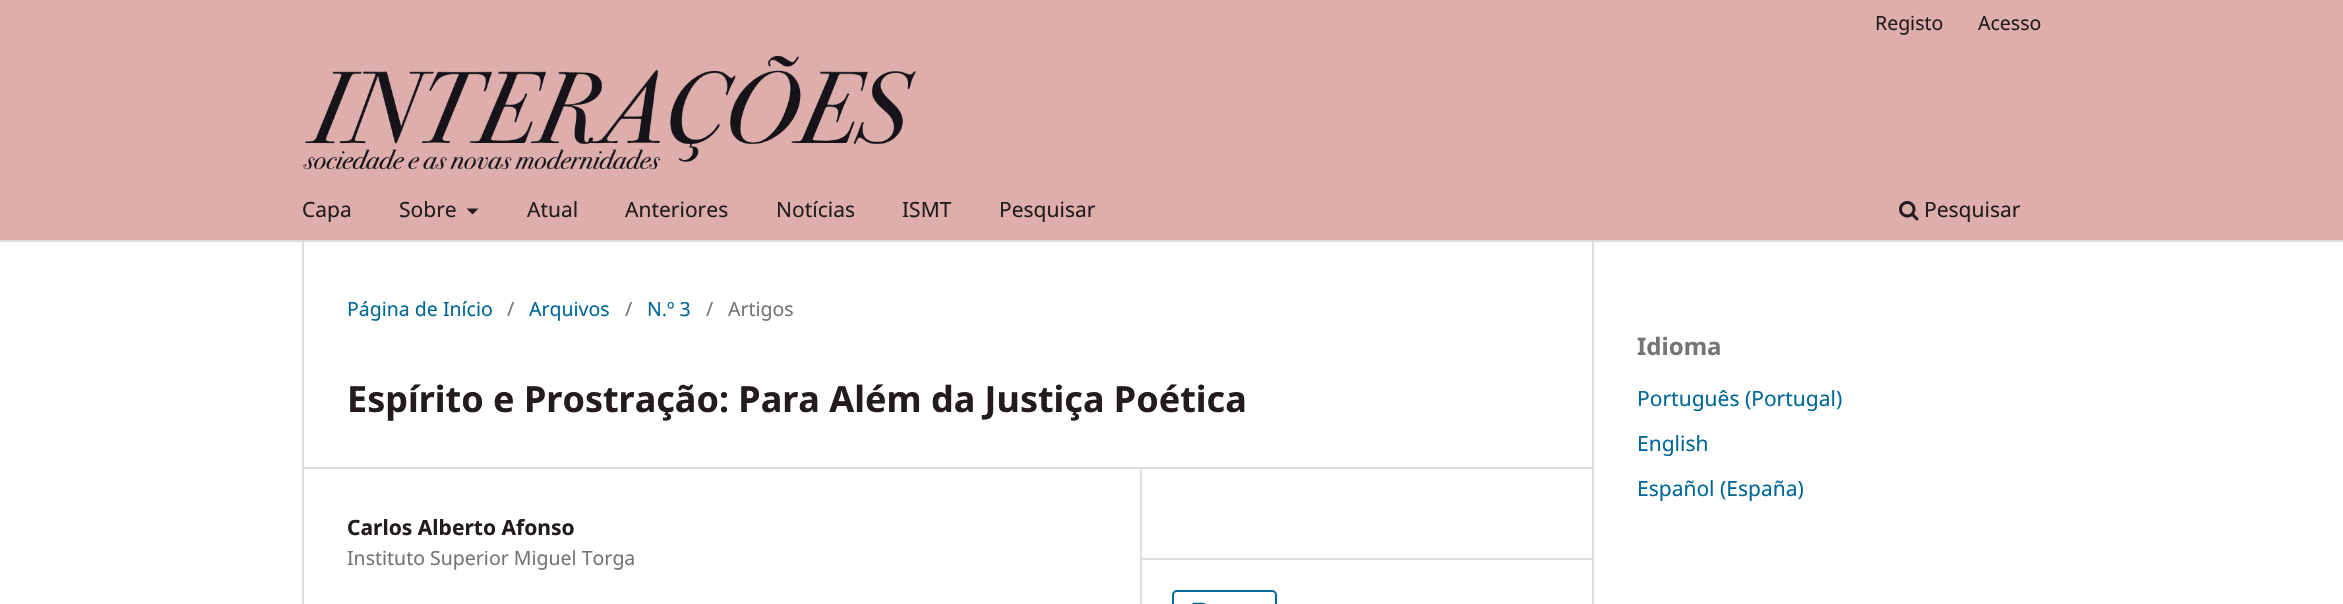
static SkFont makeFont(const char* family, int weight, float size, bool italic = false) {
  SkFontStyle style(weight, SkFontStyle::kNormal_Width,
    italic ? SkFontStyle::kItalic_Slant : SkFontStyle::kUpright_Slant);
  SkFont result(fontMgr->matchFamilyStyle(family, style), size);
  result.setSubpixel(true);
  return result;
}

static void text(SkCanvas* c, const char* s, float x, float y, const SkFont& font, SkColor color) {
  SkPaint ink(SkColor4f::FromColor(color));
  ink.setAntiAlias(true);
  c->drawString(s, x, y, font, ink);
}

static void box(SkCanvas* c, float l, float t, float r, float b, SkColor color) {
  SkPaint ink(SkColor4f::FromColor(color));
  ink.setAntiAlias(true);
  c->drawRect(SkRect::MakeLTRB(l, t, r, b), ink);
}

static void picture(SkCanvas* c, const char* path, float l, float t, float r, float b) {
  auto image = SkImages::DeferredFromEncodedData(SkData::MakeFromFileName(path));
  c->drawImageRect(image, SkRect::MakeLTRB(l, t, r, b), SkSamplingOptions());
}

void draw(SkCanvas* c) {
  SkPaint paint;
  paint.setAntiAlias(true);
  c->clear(0xffffffff);
  box(c, 0, 0, 2343, 240, 0xffddaeac);
  box(c, 0, 240, 2343, 242, 0xffdddddd);
  SkFont face1 = makeFont("Noto Sans", 400, 19.5f);
  text(c, "Registo", 1875, 30, face1, 0xff231c1c);
  text(c, "Acesso", 1978, 30, face1, 0xff231c1c);
  SkFont face2 = makeFont("Noto Sans", 400, 21);
  text(c, "Capa", 302, 217, face2, 0xff231c1c);
  text(c, "Sobre", 399, 217, face2, 0xff231c1c);
  paint.setColor(0xff231c1c);
  c->drawPath(SkPathBuilder().moveTo(466.5f, 208.5f).lineTo(478.5f, 208.5f).lineTo(472.5f, 214.5f).close().detach(), paint);
  text(c, "Atual", 527, 217, face2, 0xff231c1c);
  text(c, "Anteriores", 625, 217, face2, 0xff231c1c);
  text(c, "Notícias", 776, 217, face2, 0xff231c1c);
  text(c, "ISMT", 902, 217, face2, 0xff231c1c);
  text(c, "Pesquisar", 999, 217, face2, 0xff231c1c);
  picture(c, "img_01.png", 1899, 201, 1919, 221);
  text(c, "Pesquisar", 1924, 217, face2, 0xff231c1c);
  picture(c, "img_02.png", 303, 56, 916, 170);
  box(c, 302, 467, 1592, 469, 0xffdddddd);
  box(c, 302, 242, 304, 604, 0xffdddddd);
  text(c, "Página de Início", 347, 316, face1, 0xff006798);
  text(c, "/", 507, 316, face1, 0xff757575);
  text(c, "Arquivos", 529, 316, face1, 0xff006798);
  text(c, "/", 625, 316, face1, 0xff757575);
  text(c, "N.º 3", 647, 316, face1, 0xff006798);
  text(c, "/", 706, 316, face1, 0xff757575);
  text(c, "Artigos", 728, 316, face1, 0xff757575);
  SkFont face3 = makeFont("Noto Sans", 700, 36);
  text(c, "Espírito e Prostração: Para Além da Justiça Poética", 347, 412, face3, 0xff231c1c);
  box(c, 1140, 468, 1142, 604, 0xffdddddd);
  SkFont face4 = makeFont("Noto Sans", 700, 21);
  text(c, "Carlos Alberto Afonso", 347, 535, face4, 0xff231c1c);
  text(c, "Instituto Superior Miguel Torga", 347, 565, face1, 0xff757575);
  box(c, 1142, 558, 1592, 560, 0xffdddddd);
  paint.setStyle(SkPaint::kStroke_Style);
  paint.setStrokeWidth(2);
  paint.setColor(0xff006798);
  c->drawRoundRect(SkRect::MakeLTRB(1173, 591, 1276, 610), 4, 4, paint);
  picture(c, "img_03.png", 1192, 602, 1206, 604);
  box(c, 1592, 242, 1594, 604, 0xffdddddd);
  SkFont face5 = makeFont("Noto Sans", 700, 24);
  text(c, "Idioma", 1637, 355, face5, 0xff757575);
  text(c, "Português (Portugal)", 1637, 406, face2, 0xff006798);
  text(c, "English", 1637, 451, face2, 0xff006798);
  text(c, "Español (España)", 1637, 496, face2, 0xff006798);
}
